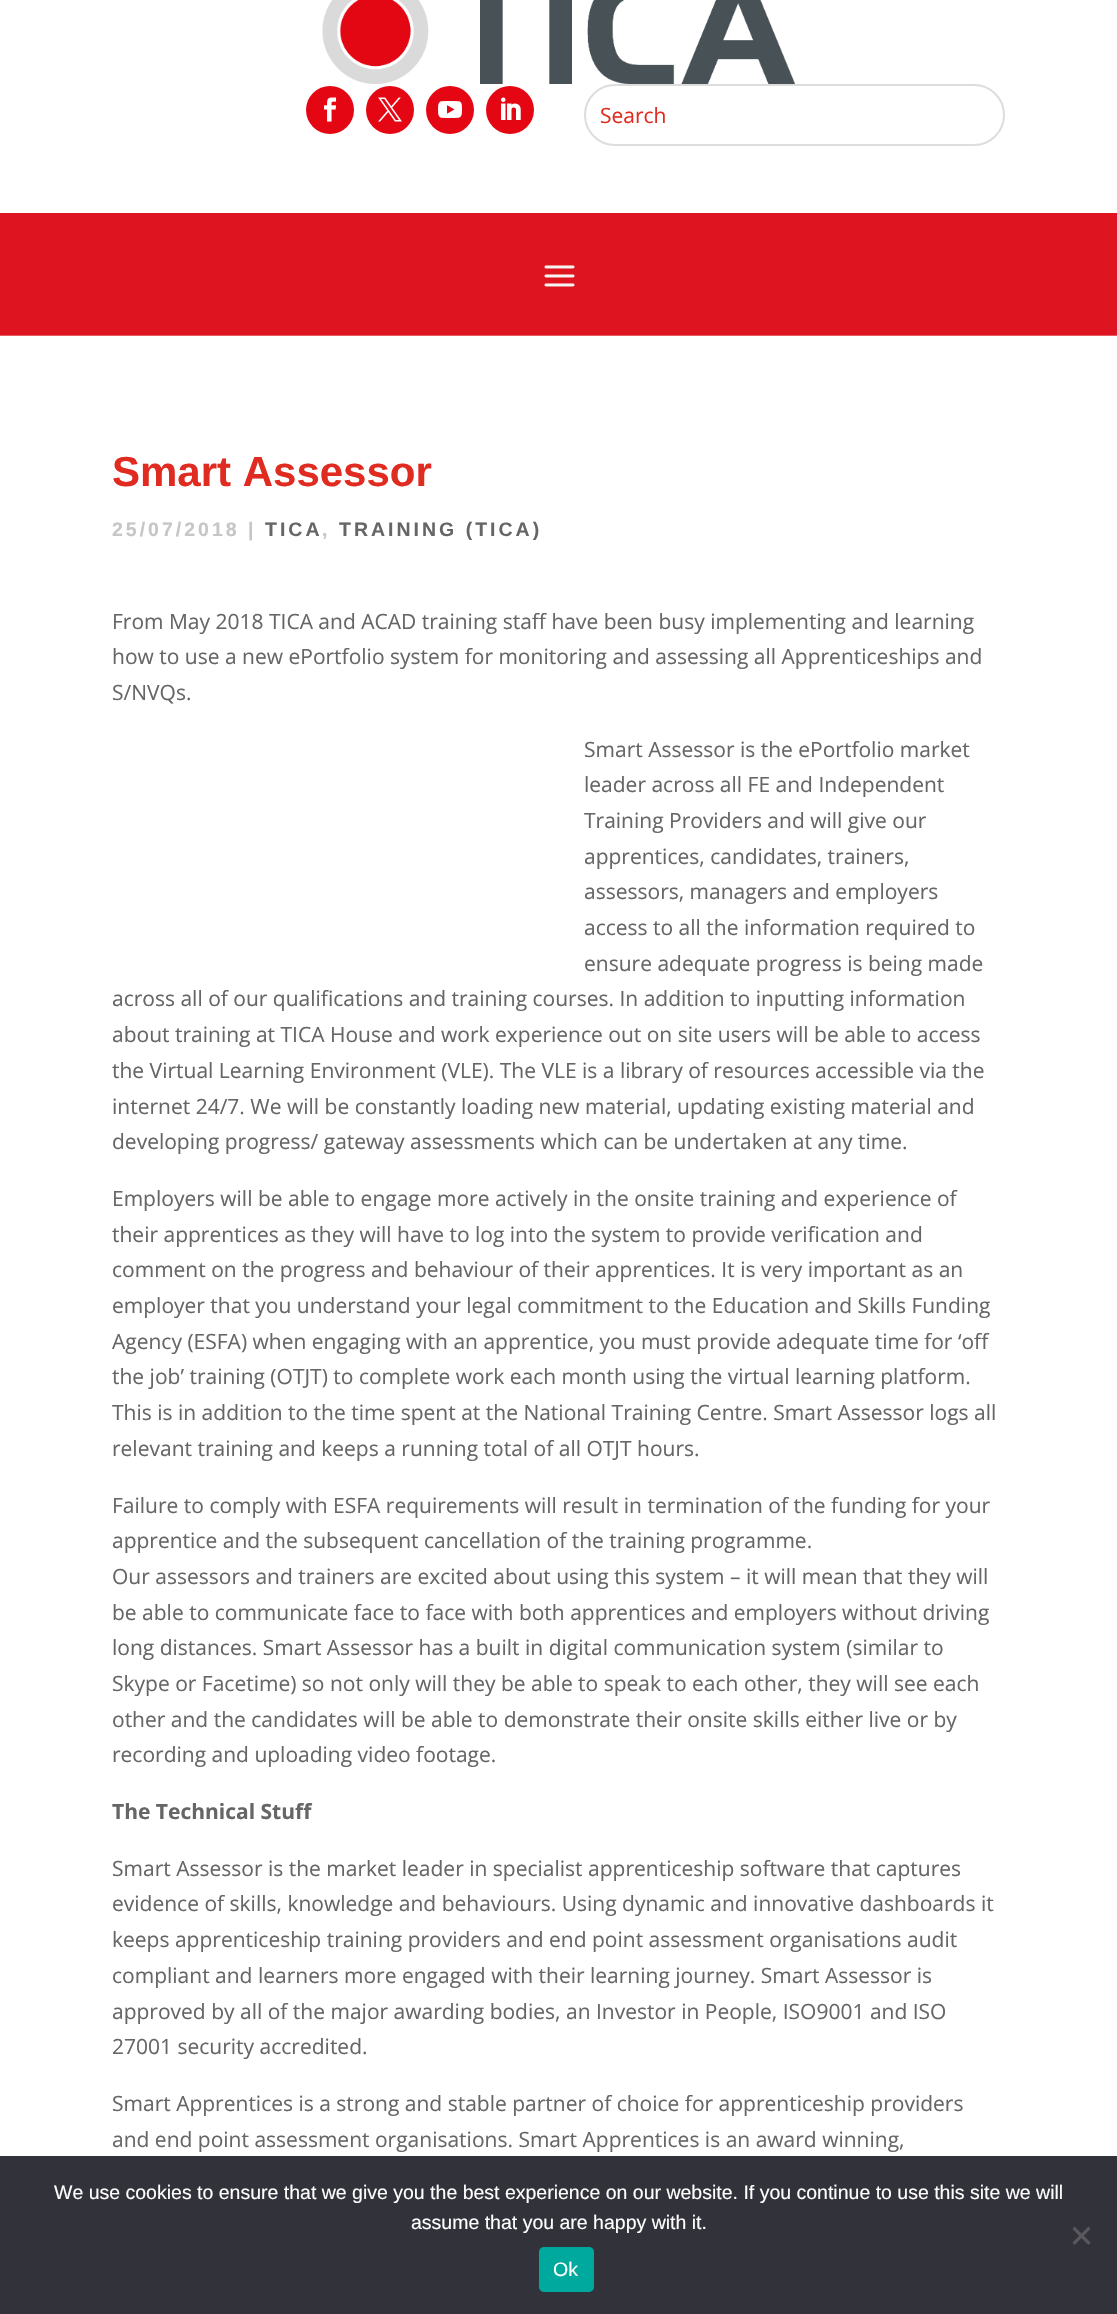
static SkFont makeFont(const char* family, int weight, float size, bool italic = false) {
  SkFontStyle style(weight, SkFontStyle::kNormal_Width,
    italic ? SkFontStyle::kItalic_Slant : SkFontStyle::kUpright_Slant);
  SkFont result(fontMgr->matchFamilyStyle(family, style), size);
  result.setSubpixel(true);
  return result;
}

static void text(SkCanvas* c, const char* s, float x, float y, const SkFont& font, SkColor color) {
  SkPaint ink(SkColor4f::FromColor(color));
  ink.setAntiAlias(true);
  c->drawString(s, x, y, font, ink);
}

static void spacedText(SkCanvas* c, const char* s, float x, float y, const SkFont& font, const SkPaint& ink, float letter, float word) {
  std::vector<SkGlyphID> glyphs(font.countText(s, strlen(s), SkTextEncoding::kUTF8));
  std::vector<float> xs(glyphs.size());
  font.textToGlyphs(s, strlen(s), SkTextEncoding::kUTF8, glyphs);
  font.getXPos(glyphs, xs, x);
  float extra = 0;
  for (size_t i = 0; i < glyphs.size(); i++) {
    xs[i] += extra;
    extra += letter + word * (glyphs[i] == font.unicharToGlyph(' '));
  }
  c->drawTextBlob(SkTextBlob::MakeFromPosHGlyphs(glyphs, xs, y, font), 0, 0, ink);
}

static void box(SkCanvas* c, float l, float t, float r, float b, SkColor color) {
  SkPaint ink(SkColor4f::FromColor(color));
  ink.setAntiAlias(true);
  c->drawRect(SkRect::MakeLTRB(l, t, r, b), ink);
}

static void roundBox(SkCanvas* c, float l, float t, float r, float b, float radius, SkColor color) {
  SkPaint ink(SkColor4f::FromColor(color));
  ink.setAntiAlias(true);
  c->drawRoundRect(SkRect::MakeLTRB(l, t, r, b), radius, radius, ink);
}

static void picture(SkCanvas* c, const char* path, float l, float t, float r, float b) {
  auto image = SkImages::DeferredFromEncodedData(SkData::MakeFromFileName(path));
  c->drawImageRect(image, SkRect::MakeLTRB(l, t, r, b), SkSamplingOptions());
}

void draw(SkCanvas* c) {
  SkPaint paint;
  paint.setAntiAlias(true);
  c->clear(0xffffffff);
  picture(c, "img_01.png", 322, 0, 795, 84);
  paint.setColor(0xffe40613);
  c->drawCircle(330, 110, 24, paint);
  picture(c, "img_02.png", 324, 97, 337, 122);
  c->drawCircle(390, 110, 24, paint);
  picture(c, "img_03.png", 378, 97, 402, 122);
  c->drawCircle(450, 110, 24, paint);
  picture(c, "img_04.png", 438, 101, 462, 118);
  c->drawCircle(510, 110, 24, paint);
  picture(c, "img_05.png", 501, 97, 521, 120);
  paint.setStyle(SkPaint::kStroke_Style);
  paint.setStrokeWidth(2);
  paint.setColor(0xffdddddd);
  c->drawRoundRect(SkRect::MakeLTRB(585, 85, 1004, 145), 30, 30, paint);
  SkFont face1 = makeFont("Open Sans", 400, 21);
  text(c, "Search", 600, 123, face1, 0xffe02b20);
  box(c, 0, 213, 1117, 335, 0xffde1520);
  box(c, 0, 335, 1117, 336, 0xffe85b63);
  picture(c, "img_06.png", 544, 265, 575, 287);
  SkFont face2 = makeFont("Liberation Sans", 700, 42);
  text(c, "Smart Assessor", 112, 486, face2, 0xffe02b20);
  SkFont face3 = makeFont("Liberation Sans", 700, 19.5f);
  paint.setStyle(SkPaint::kFill_Style);
  paint.setColor(0xffc6c6c6);
  spacedText(c, "25/07/2018 |", 112, 536, face3, paint, 3, 0);
  paint.setColor(0xff666666);
  spacedText(c, "TICA", 265, 536, face3, paint, 3, 0);
  paint.setColor(0xffc6c6c6);
  spacedText(c, ",", 322, 536, face3, paint, 3, 0);
  paint.setColor(0xff666666);
  spacedText(c, "TRAINING (TICA)", 339, 536, face3, paint, 3, 0);
  text(c, "From May 2018 TICA and ACAD training staff have been busy implementing and learning", 112, 629, face1, 0xff666666);
  text(c, "how to use a new ePortfolio system for monitoring and assessing all Apprenticeships and", 112, 664, face1, 0xff666666);
  text(c, "S/NVQs.", 112, 700, face1, 0xff666666);
  text(c, "Smart Assessor is the ePortfolio market", 584, 757, face1, 0xff666666);
  text(c, "leader across all FE and Independent", 584, 792, face1, 0xff666666);
  text(c, "Training Providers and will give our", 584, 828, face1, 0xff666666);
  text(c, "apprentices, candidates, trainers,", 584, 864, face1, 0xff666666);
  text(c, "assessors, managers and employers", 584, 899, face1, 0xff666666);
  text(c, "access to all the information required to", 584, 935, face1, 0xff666666);
  text(c, "ensure adequate progress is being made", 584, 971, face1, 0xff666666);
  text(c, "across all of our qualifications and training courses. In addition to inputting information", 112, 1006, face1, 0xff666666);
  text(c, "about training at TICA House and work experience out on site users will be able to access", 112, 1042, face1, 0xff666666);
  text(c, "the Virtual Learning Environment (VLE). The VLE is a library of resources accessible via the", 112, 1078, face1, 0xff666666);
  text(c, "internet 24/7. We will be constantly loading new material, updating existing material and", 112, 1114, face1, 0xff666666);
  text(c, "developing progress/ gateway assessments which can be undertaken at any time.", 112, 1149, face1, 0xff666666);
  text(c, "Employers will be able to engage more actively in the onsite training and experience of", 112, 1206, face1, 0xff666666);
  text(c, "their apprentices as they will have to log into the system to provide verification and", 112, 1242, face1, 0xff666666);
  text(c, "comment on the progress and behaviour of their apprentices. It is very important as an", 112, 1277, face1, 0xff666666);
  text(c, "employer that you understand your legal commitment to the Education and Skills Funding", 112, 1313, face1, 0xff666666);
  text(c, "Agency (ESFA) when engaging with an apprentice, you must provide adequate time for ‘off", 112, 1349, face1, 0xff666666);
  text(c, "the job’ training (OTJT) to complete work each month using the virtual learning platform.", 112, 1384, face1, 0xff666666);
  text(c, "This is in addition to the time spent at the National Training Centre. Smart Assessor logs all", 112, 1420, face1, 0xff666666);
  text(c, "relevant training and keeps a running total of all OTJT hours.", 112, 1456, face1, 0xff666666);
  text(c, "Failure to comply with ESFA requirements will result in termination of the funding for your", 112, 1513, face1, 0xff666666);
  text(c, "apprentice and the subsequent cancellation of the training programme.", 112, 1548, face1, 0xff666666);
  text(c, "Our assessors and trainers are excited about using this system – it will mean that they will", 112, 1584, face1, 0xff666666);
  text(c, "be able to communicate face to face with both apprentices and employers without driving", 112, 1620, face1, 0xff666666);
  text(c, "long distances. Smart Assessor has a built in digital communication system (similar to", 112, 1655, face1, 0xff666666);
  text(c, "Skype or Facetime) so not only will they be able to speak to each other, they will see each", 112, 1691, face1, 0xff666666);
  text(c, "other and the candidates will be able to demonstrate their onsite skills either live or by", 112, 1727, face1, 0xff666666);
  text(c, "recording and uploading video footage.", 112, 1762, face1, 0xff666666);
  SkFont face4 = makeFont("Open Sans", 700, 21);
  text(c, "The Technical Stuff", 112, 1819, face4, 0xff666666);
  text(c, "Smart Assessor is the market leader in specialist apprenticeship software that captures", 112, 1876, face1, 0xff666666);
  text(c, "evidence of skills, knowledge and behaviours. Using dynamic and innovative dashboards it", 112, 1911, face1, 0xff666666);
  text(c, "keeps apprenticeship training providers and end point assessment organisations audit", 112, 1947, face1, 0xff666666);
  text(c, "compliant and learners more engaged with their learning journey. Smart Assessor is", 112, 1983, face1, 0xff666666);
  text(c, "approved by all of the major awarding bodies, an Investor in People, ISO9001 and ISO", 112, 2019, face1, 0xff666666);
  text(c, "27001 security accredited.", 112, 2054, face1, 0xff666666);
  text(c, "Smart Apprentices is a strong and stable partner of choice for apprenticeship providers", 112, 2111, face1, 0xff666666);
  text(c, "and end point assessment organisations. Smart Apprentices is an award winning,", 112, 2147, face1, 0xff666666);
  box(c, 0, 2156, 1117, 2314, 0xff32323a);
  SkFont face5 = makeFont("Liberation Sans", 400, 19.5f);
  text(c, "We use cookies to ensure that we give you the best experience on our website. If you continue to use this site we will", 54, 2199, face5, 0xffffffff);
  text(c, "assume that you are happy with it.", 411, 2229, face5, 0xffffffff);
  paint.setColor(0xff59595d);
  c->drawPath(SkPathBuilder().moveTo(1088.5f, 2226.5f).lineTo(1090.5f, 2229).lineTo(1074.5f, 2245).lineTo(1072.5f, 2242.5f).close().detach(), paint);
  c->drawPath(SkPathBuilder().moveTo(1072.5f, 2229).lineTo(1074.5f, 2226.5f).lineTo(1090.5f, 2242.5f).lineTo(1088.5f, 2245).close().detach(), paint);
  roundBox(c, 539, 2247, 594, 2292, 5, 0xff00a99d);
  text(c, "Ok", 553, 2276, face5, 0xffffffff);
}
